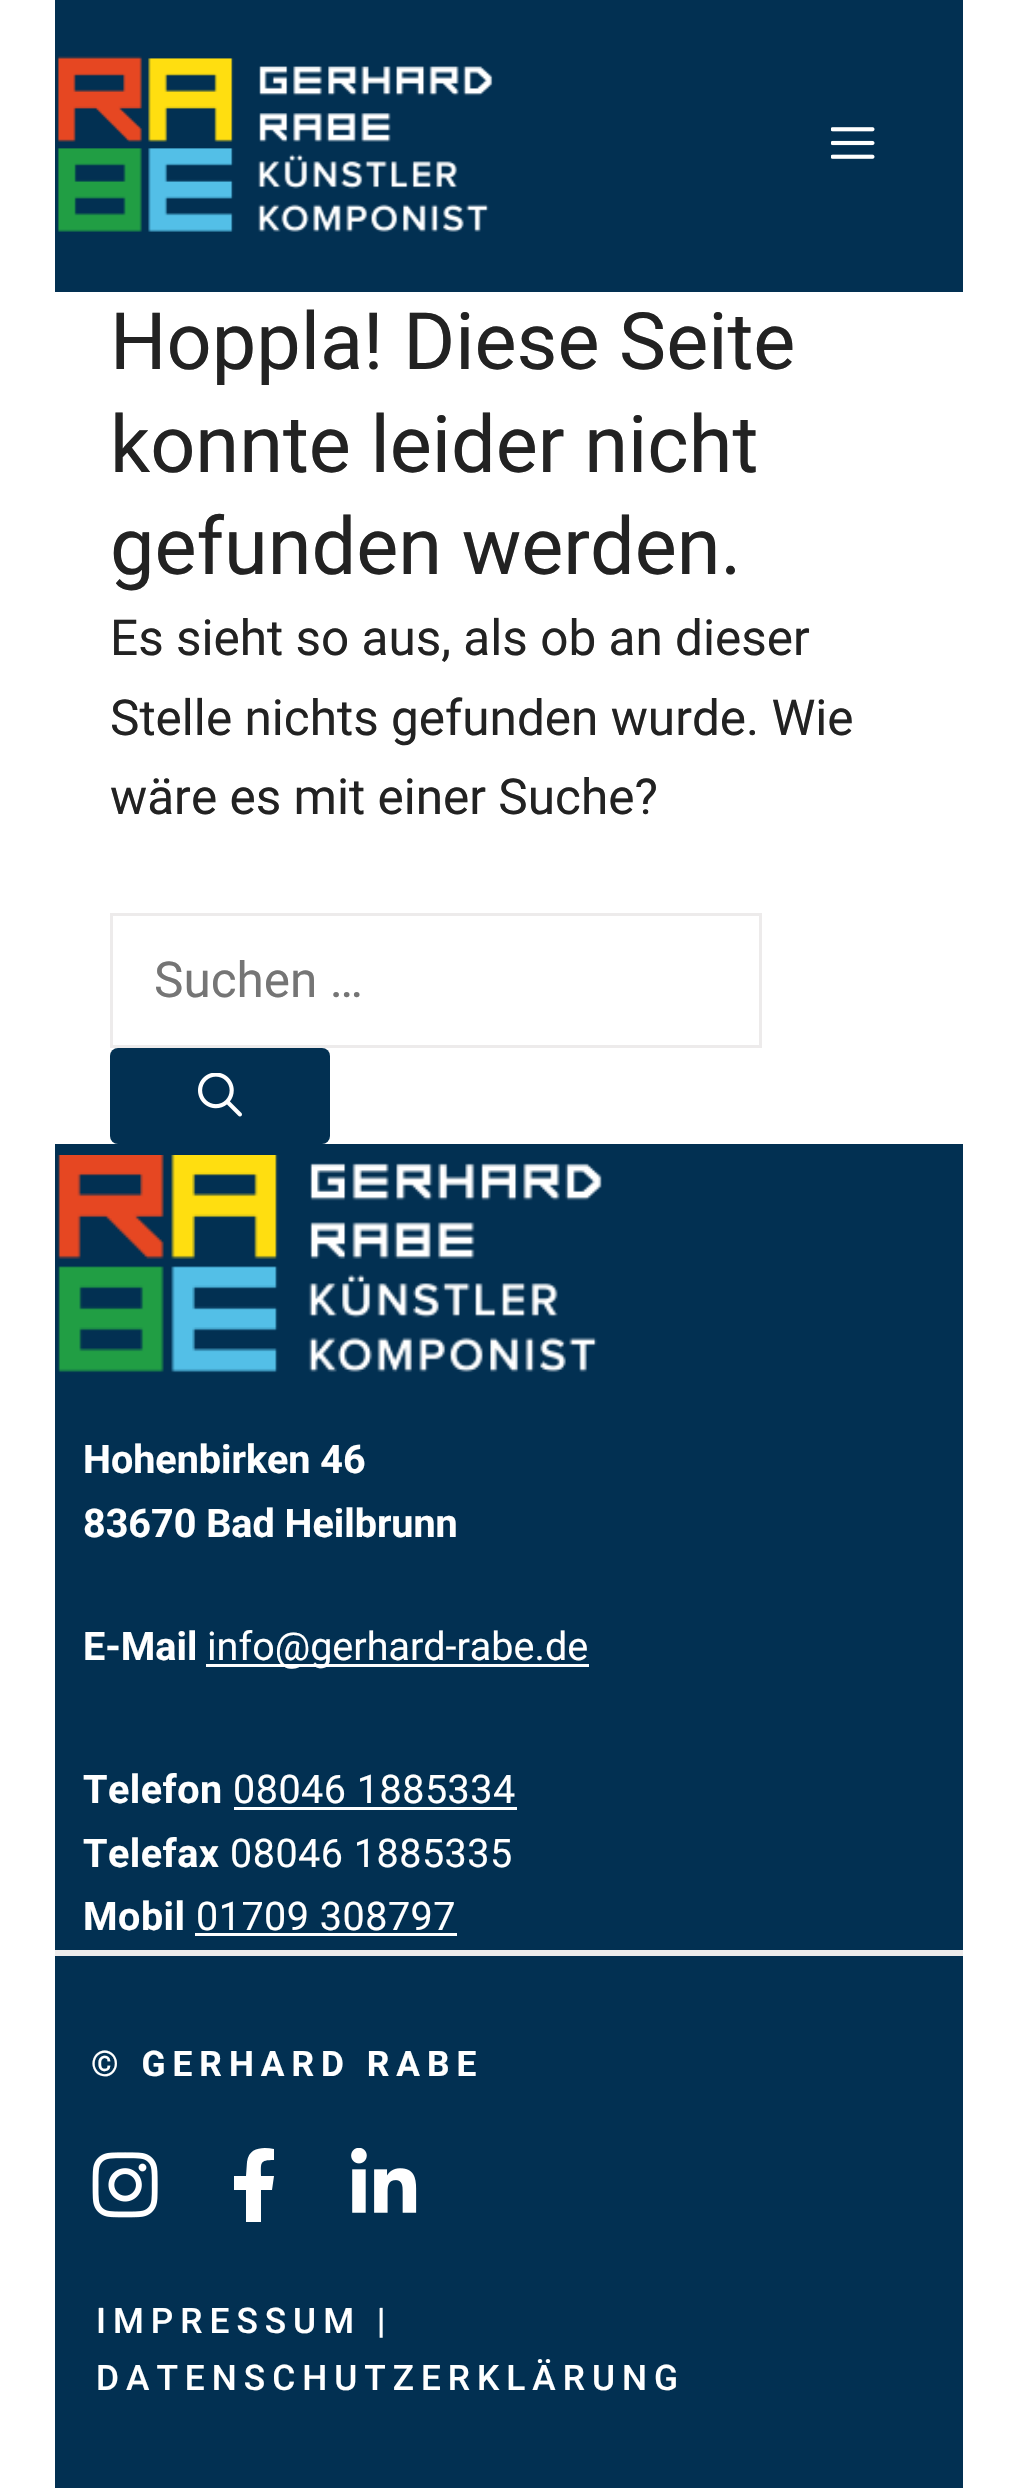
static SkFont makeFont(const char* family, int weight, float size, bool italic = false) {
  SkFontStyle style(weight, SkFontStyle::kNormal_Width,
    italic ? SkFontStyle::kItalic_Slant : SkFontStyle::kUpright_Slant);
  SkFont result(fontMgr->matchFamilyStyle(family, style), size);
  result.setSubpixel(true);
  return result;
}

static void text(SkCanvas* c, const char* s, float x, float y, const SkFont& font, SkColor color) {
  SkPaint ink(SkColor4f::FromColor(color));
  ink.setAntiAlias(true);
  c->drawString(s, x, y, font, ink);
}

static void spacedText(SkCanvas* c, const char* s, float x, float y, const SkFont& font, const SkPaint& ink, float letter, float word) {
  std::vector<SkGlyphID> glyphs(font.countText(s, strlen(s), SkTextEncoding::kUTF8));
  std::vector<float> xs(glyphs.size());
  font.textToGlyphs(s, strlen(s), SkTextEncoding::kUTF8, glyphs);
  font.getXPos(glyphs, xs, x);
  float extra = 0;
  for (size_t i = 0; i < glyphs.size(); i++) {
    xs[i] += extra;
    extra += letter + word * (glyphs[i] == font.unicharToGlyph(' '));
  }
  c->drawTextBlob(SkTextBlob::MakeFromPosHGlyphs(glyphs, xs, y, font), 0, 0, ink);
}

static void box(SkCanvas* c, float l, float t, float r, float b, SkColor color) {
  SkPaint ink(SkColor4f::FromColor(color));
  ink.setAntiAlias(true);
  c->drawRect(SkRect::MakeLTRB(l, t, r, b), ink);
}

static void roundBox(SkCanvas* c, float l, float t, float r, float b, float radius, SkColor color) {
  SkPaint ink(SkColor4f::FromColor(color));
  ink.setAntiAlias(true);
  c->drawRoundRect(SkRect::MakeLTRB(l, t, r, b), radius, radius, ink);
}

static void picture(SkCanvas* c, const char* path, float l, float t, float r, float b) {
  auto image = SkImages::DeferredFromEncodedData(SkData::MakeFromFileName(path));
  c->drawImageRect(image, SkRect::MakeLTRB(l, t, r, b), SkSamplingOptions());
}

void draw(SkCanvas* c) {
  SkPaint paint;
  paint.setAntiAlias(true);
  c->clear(0xffffffff);
  box(c, 55, 0, 963, 292, 0xff023052);
  picture(c, "img_01.png", 56, 56, 493, 232);
  picture(c, "img_02.png", 831, 127, 875, 159);
  SkFont face1 = makeFont("Roboto", 400, 79.25f);
  text(c, "Hoppla! Diese Seite", 110, 369, face1, 0xff222222);
  text(c, "konnte leider nicht", 110, 472, face1, 0xff222222);
  text(c, "gefunden werden.", 110, 574, face1, 0xff222222);
  SkFont face2 = makeFont("Roboto", 400, 49.5f);
  text(c, "Es sieht so aus, als ob an dieser", 110, 655, face2, 0xff222222);
  text(c, "Stelle nichts gefunden wurde. Wie", 110, 735, face2, 0xff222222);
  text(c, "wäre es mit einer Suche?", 110, 814, face2, 0xff222222);
  paint.setStyle(SkPaint::kStroke_Style);
  paint.setStrokeWidth(3);
  paint.setColor(0xffedebeb);
  c->drawRect(SkRect::MakeLTRB(111.5f, 914.5f, 760.5f, 1046.5f), paint);
  text(c, "Suchen …", 154, 997, face2, 0xff757575);
  roundBox(c, 110, 1048, 330, 1144, 8, 0xff023052);
  picture(c, "img_03.png", 198, 1073, 242, 1117);
  box(c, 55, 1144, 963, 2488, 0xff023052);
  picture(c, "img_04.png", 57, 1155, 602, 1373);
  SkFont face3 = makeFont("Roboto", 700, 39.5f);
  text(c, "Hohenbirken 46", 83, 1473, face3, 0xffffffff);
  text(c, "83670 Bad Heilbrunn", 83, 1537, face3, 0xffffffff);
  text(c, "E-Mail", 83, 1660, face3, 0xffffffff);
  box(c, 206, 1664, 589, 1667, 0xffffffff);
  SkFont face4 = makeFont("Roboto", 400, 39.5f);
  text(c, "info@gerhard-rabe.de", 207, 1660, face4, 0xffffffff);
  paint.setStyle(SkPaint::kFill_Style);
  paint.setColor(0xffffffff);
  spacedText(c, "Telefon", 83, 1803, face3, paint, 0.5f, 0);
  spacedText(c, "08046 1885334", 233, 1803, face4, paint, 0.5f, 0);
  box(c, 234, 1807, 517, 1810, 0xffffffff);
  spacedText(c, "Telefax", 83, 1867, face3, paint, 0.5f, 0);
  spacedText(c, "08046 1885335", 230, 1867, face4, paint, 0.5f, 0);
  spacedText(c, "Mobil", 83, 1930, face3, paint, 0.5f, 0);
  spacedText(c, "01709 308797", 196, 1930, face4, paint, 0.5f, 0);
  box(c, 195, 1933, 457, 1936, 0xffffffff);
  box(c, 55, 1950, 963, 1956, 0xffedebeb);
  SkFont face5 = makeFont("Roboto", 700, 35.25f);
  spacedText(c, "© GERHARD RABE", 91, 2076, face5, paint, 7, 0);
  picture(c, "img_05.png", 92, 2152, 158, 2218);
  c->drawPath(SkPathBuilder().moveTo(272, 2190).lineTo(274, 2176).lineTo(261, 2176).cubicTo(261, 2163, 259, 2160, 274, 2160).lineTo(274, 2149).cubicTo(263, 2147, 249, 2147, 247, 2162).lineTo(246, 2176).lineTo(234, 2176).lineTo(234, 2190).lineTo(246, 2190).lineTo(246, 2222).lineTo(261, 2222).lineTo(261, 2190).close().detach(), paint);
  picture(c, "img_06.png", 351, 2148, 417, 2213);
  SkFont face6 = makeFont("Roboto", 500, 35.25f);
  spacedText(c, "IMPRESSUM |", 96, 2333, face6, paint, 7, 0);
  spacedText(c, "DATENSCHUTZERKLÄRUNG", 96, 2390, face6, paint, 7, 0);
}
